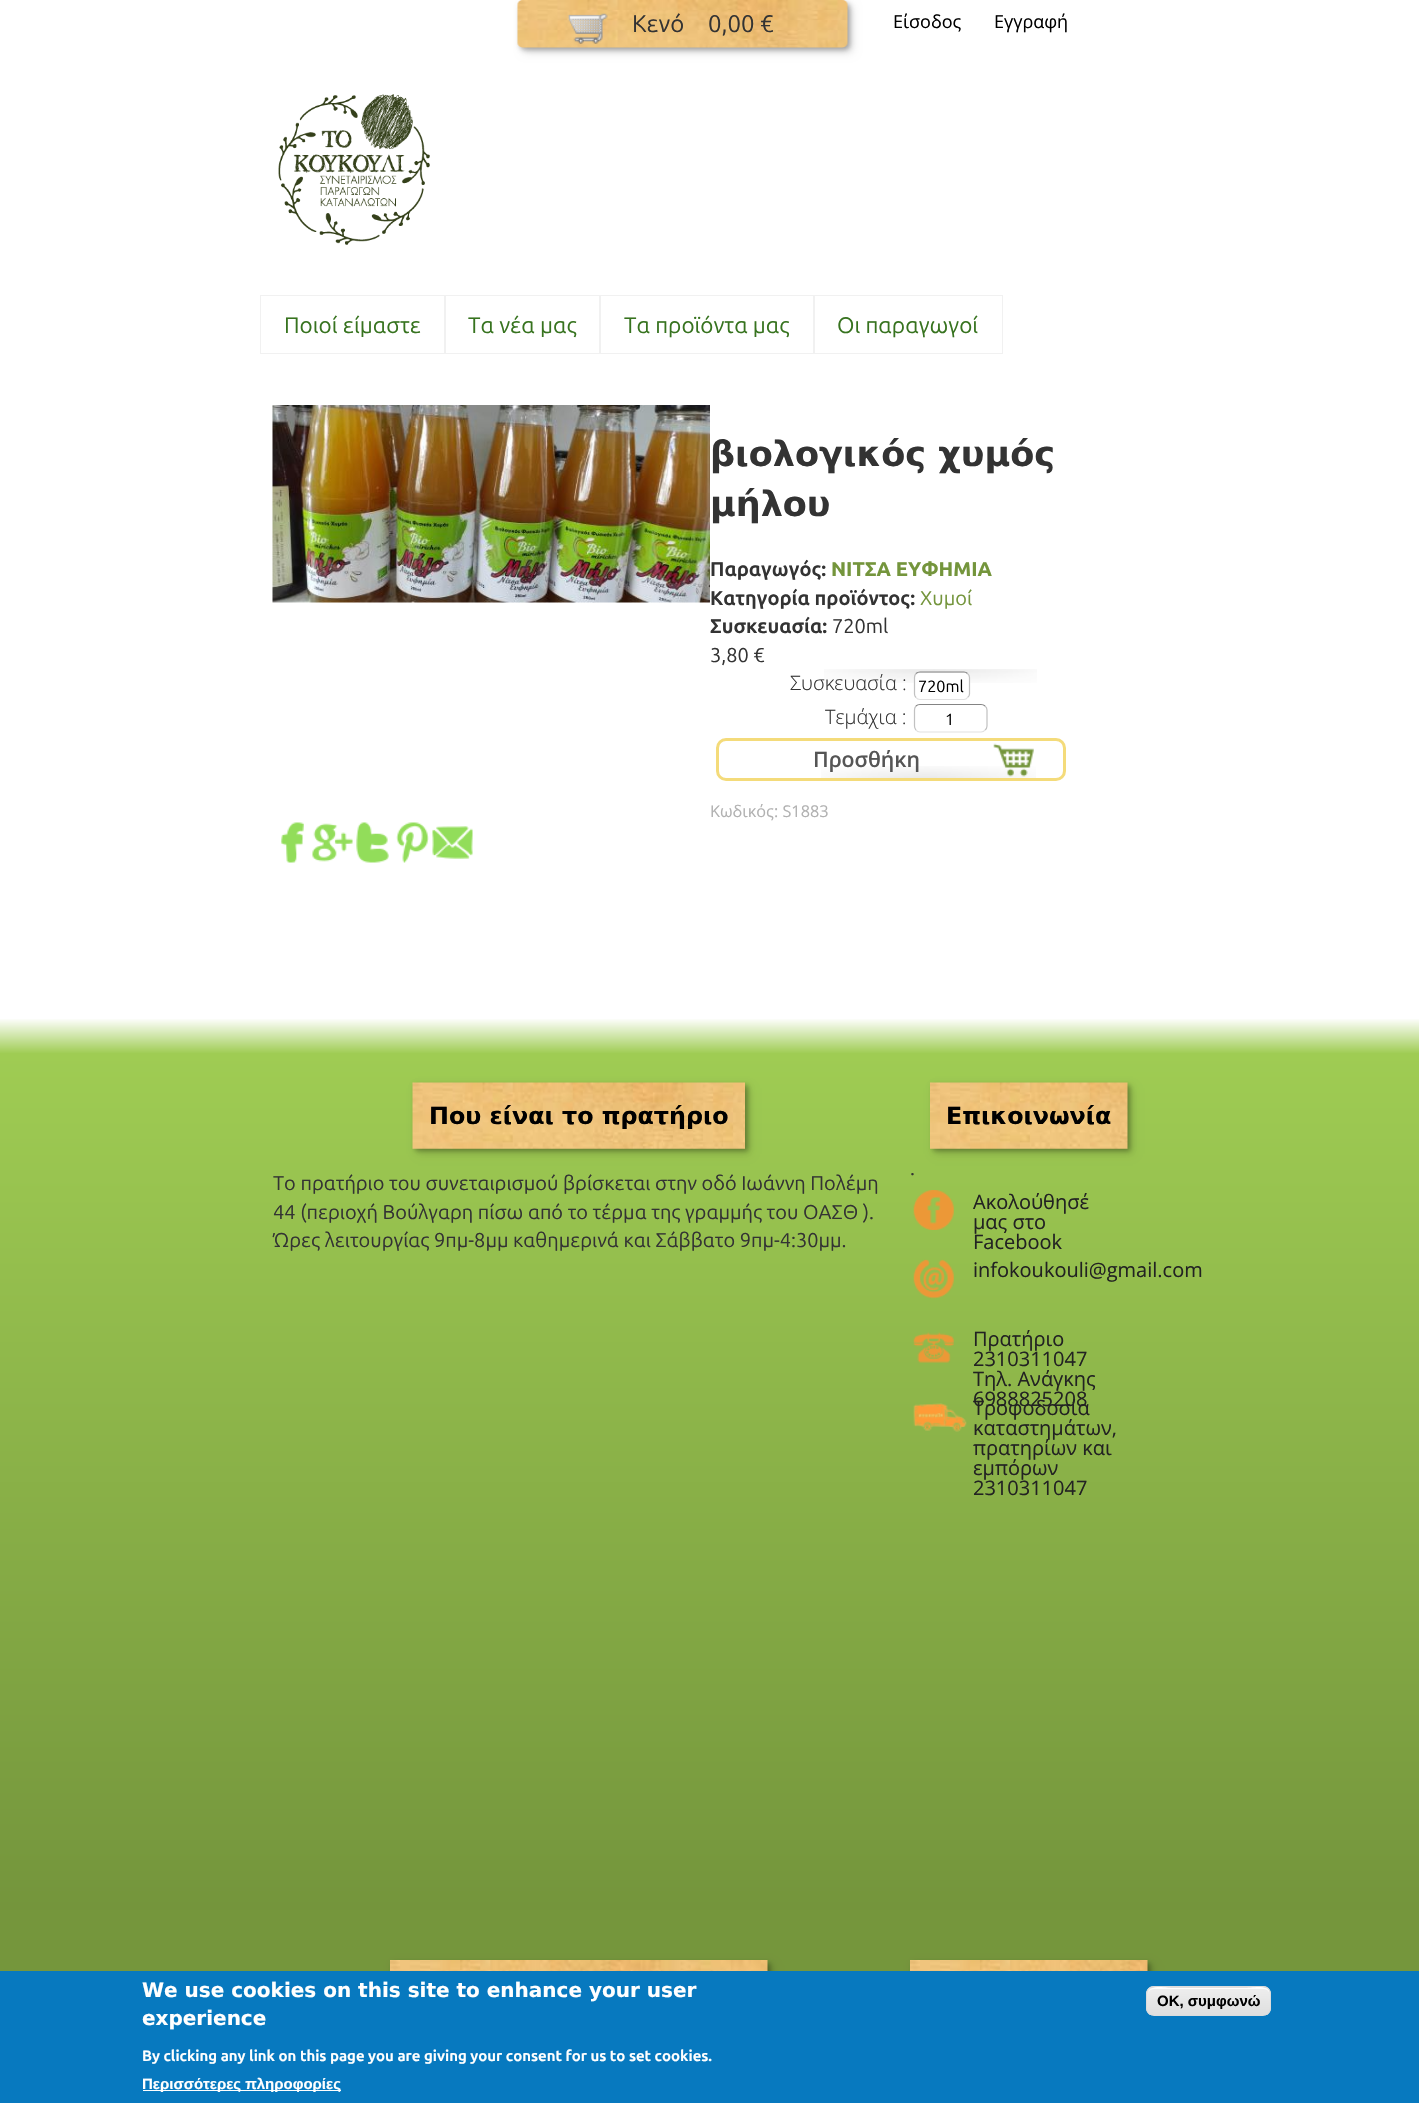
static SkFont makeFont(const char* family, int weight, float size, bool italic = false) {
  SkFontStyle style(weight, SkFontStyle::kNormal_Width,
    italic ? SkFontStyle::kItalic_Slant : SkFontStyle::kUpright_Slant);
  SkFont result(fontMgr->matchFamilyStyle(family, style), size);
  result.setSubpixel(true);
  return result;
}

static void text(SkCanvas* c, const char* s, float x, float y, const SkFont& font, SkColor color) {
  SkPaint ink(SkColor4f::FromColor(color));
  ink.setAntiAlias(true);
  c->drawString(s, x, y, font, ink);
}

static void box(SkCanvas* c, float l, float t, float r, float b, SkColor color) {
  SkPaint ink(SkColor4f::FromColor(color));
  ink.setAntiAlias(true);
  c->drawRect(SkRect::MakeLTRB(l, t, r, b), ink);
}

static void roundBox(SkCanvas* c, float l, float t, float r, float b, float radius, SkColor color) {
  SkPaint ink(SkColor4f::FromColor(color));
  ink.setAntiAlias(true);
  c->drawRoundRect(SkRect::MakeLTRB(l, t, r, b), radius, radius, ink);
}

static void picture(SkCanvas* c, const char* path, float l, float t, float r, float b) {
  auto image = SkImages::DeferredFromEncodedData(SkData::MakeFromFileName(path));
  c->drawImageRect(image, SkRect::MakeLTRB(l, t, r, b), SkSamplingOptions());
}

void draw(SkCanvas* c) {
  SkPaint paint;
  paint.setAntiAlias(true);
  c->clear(0xffffffff);
  paint.setColor(0x1a000000);
  paint.setMaskFilter(SkMaskFilter::MakeBlur(kNormal_SkBlurStyle, 4));
  c->drawRoundRect(SkRect::MakeLTRB(523, 5, 853, 53), 5, 5, paint);
  paint.setMaskFilter(nullptr);
  paint.setColor(0x4d000000);
  paint.setMaskFilter(SkMaskFilter::MakeBlur(kNormal_SkBlurStyle, 2.5f));
  c->drawRoundRect(SkRect::MakeLTRB(520, 3, 850, 50), 5, 5, paint);
  paint.setMaskFilter(nullptr);
  picture(c, "img_01.png", 517, 0, 848, 48);
  picture(c, "img_02.png", 567, 13, 608, 44);
  SkFont face1 = makeFont("Ubuntu", 400, 24);
  text(c, "Κενό", 632, 32, face1, 0xff333333);
  text(c, "0,00 €", 708, 32, face1, 0xff333333);
  SkFont face2 = makeFont("Open Sans", 400, 18);
  text(c, "Είσοδος", 893, 28, face2, 0xff000000);
  text(c, "Εγγραφή", 994, 28, face2, 0xff000000);
  picture(c, "img_03.png", 278, 94, 430, 245);
  paint.setStyle(SkPaint::kStroke_Style);
  paint.setStrokeWidth(1);
  paint.setColor(0xfff1f1f1);
  c->drawRect(SkRect::MakeLTRB(260.5f, 295.5f, 444.5f, 353.5f), paint);
  SkFont face3 = makeFont("Ubuntu", 400, 22.5f);
  text(c, "Ποιοί είμαστε", 284, 333, face3, 0xff37731f);
  c->drawRect(SkRect::MakeLTRB(445.5f, 295.5f, 599.5f, 353.5f), paint);
  text(c, "Τα νέα μας", 468, 333, face3, 0xff37731f);
  c->drawRect(SkRect::MakeLTRB(600.5f, 295.5f, 813.5f, 353.5f), paint);
  text(c, "Τα προϊόντα μας", 624, 333, face3, 0xff37731f);
  c->drawRect(SkRect::MakeLTRB(814.5f, 295.5f, 1002.5f, 353.5f), paint);
  text(c, "Oι παραγωγοί", 837, 333, face3, 0xff37731f);
  picture(c, "img_04.png", 272, 405, 710, 603);
  SkFont face4 = makeFont("DejaVu Sans", 700, 35);
  text(c, "βιολογικός χυμός", 710, 466, face4, 0xff333333);
  text(c, "μήλου", 710, 516, face4, 0xff333333);
  SkFont face5 = makeFont("Ubuntu", 700, 20);
  text(c, "Παραγωγός:", 710, 576, face5, 0xff333333);
  SkFont face6 = makeFont("Ubuntu", 800, 20);
  text(c, "ΝΙΤΣΑ ΕΥΦΗΜΙΑ", 831, 576, face6, 0xff74953c);
  text(c, "Κατηγορία προϊόντος:", 710, 605, face5, 0xff333333);
  SkFont face7 = makeFont("Ubuntu", 400, 20);
  text(c, "Χυμοί", 920, 605, face7, 0xff74953c);
  text(c, "Συσκευασία:", 710, 633, face5, 0xff333333);
  text(c, "720ml", 832, 633, face7, 0xff333333);
  text(c, "3,80 €", 710, 662, face7, 0xff333333);
  picture(c, "img_05.png", 821, 766, 1036, 778);
  picture(c, "img_06.png", 824, 669, 1037, 683);
  SkFont face8 = makeFont("Open Sans", 300, 20);
  text(c, "Συσκευασία :", 790, 690, face8, 0xff333333);
  roundBox(c, 915, 673, 969, 699, 5, 0xffffffff);
  paint.setStrokeWidth(1.2f);
  paint.setColor(0xff848484);
  c->drawPath(SkPathBuilder().moveTo(916, 673.5f).cubicTo(917, 672.5f, 918.5f, 672, 920, 672).lineTo(964, 672).cubicTo(965, 672, 966.5f, 672.5f, 967.5f, 673.5f).detach(), paint);
  paint.setColor(0xffc1c1c1);
  c->drawPath(SkPathBuilder().moveTo(967.5f, 673.5f).cubicTo(969, 674.5f, 969.5f, 676, 969.5f, 677.5f).lineTo(969.5f, 694).cubicTo(969.5f, 695, 969, 696.5f, 967.5f, 697.5f).detach(), paint);
  paint.setColor(0xffe1e1e1);
  c->drawPath(SkPathBuilder().moveTo(967.5f, 697.5f).cubicTo(966.5f, 699, 965, 699.5f, 964, 699.5f).lineTo(920, 699.5f).cubicTo(918.5f, 699.5f, 917, 699, 916, 697.5f).detach(), paint);
  paint.setColor(0xffc1c1c1);
  c->drawPath(SkPathBuilder().moveTo(916, 697.5f).cubicTo(915, 696.5f, 914.5f, 695, 914.5f, 694).lineTo(914.5f, 677.5f).cubicTo(914.5f, 676, 915, 674.5f, 916, 673.5f).detach(), paint);
  SkFont face9 = makeFont("Ubuntu", 400, 16.25f);
  text(c, "720ml", 918, 692, face9, 0xff000000);
  text(c, "Τεμάχια :", 825, 724, face8, 0xff333333);
  paint.setColor(0xff848484);
  c->drawPath(SkPathBuilder().moveTo(916, 706).cubicTo(917, 705, 918.5f, 704.5f, 920, 704.5f).lineTo(981, 704.5f).cubicTo(982.5f, 704.5f, 984, 705, 985, 706).detach(), paint);
  paint.setColor(0xffc1c1c1);
  c->drawPath(SkPathBuilder().moveTo(985, 706).cubicTo(986.5f, 707, 987, 708.5f, 987, 710).lineTo(987, 726).cubicTo(987, 727.5f, 986.5f, 729, 985, 730).detach(), paint);
  paint.setColor(0xffe1e1e1);
  c->drawPath(SkPathBuilder().moveTo(985, 730).cubicTo(984, 731.5f, 982.5f, 732, 981, 732).lineTo(920, 732).cubicTo(918.5f, 732, 917, 731.5f, 916, 730).detach(), paint);
  paint.setColor(0xffc1c1c1);
  c->drawPath(SkPathBuilder().moveTo(916, 730).cubicTo(915, 729, 914.5f, 727.5f, 914.5f, 726).lineTo(914.5f, 710).cubicTo(914.5f, 708.5f, 915, 707, 916, 706).detach(), paint);
  text(c, "1", 945, 725, face9, 0xff000000);
  picture(c, "img_07.png", 993, 743, 1034, 777);
  paint.setStrokeWidth(3);
  paint.setColor(0xfff4db7a);
  c->drawRoundRect(SkRect::MakeLTRB(717.5f, 739.5f, 1064.5f, 779.5f), 8.5f, 8.5f, paint);
  SkFont face10 = makeFont("Open Sans", 600, 21.25f);
  text(c, "Προσθήκη", 813, 767, face10, 0xff555555);
  SkFont face11 = makeFont("Open Sans", 400, 16.25f);
  text(c, "Κωδικός: S1883", 710, 817, face11, 0xffb1b1b1);
  picture(c, "img_08.png", 281, 822, 304, 863);
  picture(c, "img_09.png", 312, 823, 353, 862);
  picture(c, "img_10.png", 356, 822, 389, 863);
  picture(c, "img_11.png", 396, 822, 429, 863);
  picture(c, "img_12.png", 432, 826, 473, 859);
  paint.setStyle(SkPaint::kFill_Style);
  {
    const SkColor colors[] = {0xffffffff, 0xff9fcc53, 0xff74953c};
    const float stops[] = {0, 0.04f, 1};
    const SkPoint ends[] = {{710, 1018}, {710, 1910}};
    paint.setShader(SkGradientShader::MakeLinear(ends, colors, stops, 3, SkTileMode::kClamp));
    paint.setAlpha(255);
  }
  c->drawRect(SkRect::MakeLTRB(0, 1019, 1419, 1910), paint);
  paint.setShader(nullptr);
  paint.setColor(0x1a000000);
  paint.setMaskFilter(SkMaskFilter::MakeBlur(kNormal_SkBlurStyle, 4));
  c->drawRect(SkRect::MakeLTRB(418, 1088, 750, 1154), paint);
  paint.setMaskFilter(nullptr);
  paint.setColor(0x4d000000);
  paint.setMaskFilter(SkMaskFilter::MakeBlur(kNormal_SkBlurStyle, 2.5f));
  c->drawRect(SkRect::MakeLTRB(415, 1085, 748, 1151), paint);
  paint.setMaskFilter(nullptr);
  picture(c, "img_13.png", 412, 1082, 745, 1149);
  SkFont face12 = makeFont("DejaVu Sans", 700, 23.75f);
  text(c, "Που είναι το πρατήριο", 429, 1124, face12, 0xff000000);
  text(c, "Το πρατήριο του συνεταιρισμού βρίσκεται στην οδό Iωάννη Πολέμη", 273, 1190, face7, 0xff333333);
  text(c, "44 (περιοχή Βούλγαρη πίσω από το τέρμα της γραμμής του ΟΑΣΘ ).", 273, 1219, face7, 0xff333333);
  text(c, "Ώρες λειτουργίας 9πμ-8μμ καθημερινά και Σάββατο 9πμ-4:30μμ.", 273, 1247, face7, 0xff333333);
  paint.setColor(0x1a000000);
  paint.setMaskFilter(SkMaskFilter::MakeBlur(kNormal_SkBlurStyle, 4));
  c->drawRect(SkRect::MakeLTRB(935, 1088, 1133, 1154), paint);
  paint.setMaskFilter(nullptr);
  paint.setColor(0x4d000000);
  paint.setMaskFilter(SkMaskFilter::MakeBlur(kNormal_SkBlurStyle, 2.5f));
  c->drawRect(SkRect::MakeLTRB(933, 1085, 1130, 1151), paint);
  paint.setMaskFilter(nullptr);
  picture(c, "img_14.png", 930, 1082, 1128, 1149);
  text(c, "Επικοινωνία", 946, 1124, face12, 0xff000000);
  text(c, ".", 910, 1175, face7, 0xff333333);
  picture(c, "img_15.png", 913, 1190, 954, 1230);
  SkFont face13 = makeFont("Open Sans", 400, 20);
  text(c, "Ακολούθησέ", 973, 1209, face13, 0xff222222);
  text(c, "μας στο", 973, 1229, face13, 0xff222222);
  text(c, "Facebook", 973, 1249, face13, 0xff222222);
  picture(c, "img_16.png", 913, 1259, 954, 1299);
  text(c, "infokoukouli@gmail.com", 973, 1277, face13, 0xff222222);
  picture(c, "img_17.png", 913, 1332, 954, 1363);
  text(c, "Πρατήριο", 973, 1346, face13, 0xff222222);
  text(c, "2310311047", 973, 1366, face13, 0xff222222);
  text(c, "Τηλ. Ανάγκης", 973, 1386, face13, 0xff222222);
  text(c, "6988825208", 973, 1406, face13, 0xff222222);
  picture(c, "img_18.png", 913, 1403, 967, 1432);
  text(c, "Τροφοδοσία", 973, 1415, face13, 0xff222222);
  text(c, "καταστημάτων,", 973, 1435, face13, 0xff222222);
  text(c, "πρατηρίων και", 973, 1455, face13, 0xff222222);
  text(c, "εμπόρων", 973, 1475, face13, 0xff222222);
  text(c, "2310311047", 973, 1495, face13, 0xff222222);
  box(c, 0, 1910, 1419, 1971, 0xff75963c);
  paint.setColor(0x1a000000);
  paint.setMaskFilter(SkMaskFilter::MakeBlur(kNormal_SkBlurStyle, 4));
  c->drawRect(SkRect::MakeLTRB(395, 1965, 773, 2031), paint);
  paint.setMaskFilter(nullptr);
  paint.setColor(0x4d000000);
  paint.setMaskFilter(SkMaskFilter::MakeBlur(kNormal_SkBlurStyle, 2.5f));
  c->drawRect(SkRect::MakeLTRB(393, 1963, 770, 2029), paint);
  paint.setMaskFilter(nullptr);
  picture(c, "img_19.png", 390, 1960, 768, 1971);
  paint.setColor(0x1a000000);
  paint.setMaskFilter(SkMaskFilter::MakeBlur(kNormal_SkBlurStyle, 4));
  c->drawRect(SkRect::MakeLTRB(915, 1965, 1153, 2065), paint);
  paint.setMaskFilter(nullptr);
  paint.setColor(0x4d000000);
  paint.setMaskFilter(SkMaskFilter::MakeBlur(kNormal_SkBlurStyle, 2.5f));
  c->drawRect(SkRect::MakeLTRB(913, 1963, 1150, 2063), paint);
  paint.setMaskFilter(nullptr);
  picture(c, "img_20.png", 910, 1960, 1148, 1971);
  box(c, 0, 1971, 1419, 2103, 0xff0779bf);
  SkFont face14 = makeFont("DejaVu Sans", 700, 20);
  text(c, "We use cookies on this site to enhance your user", 142, 1997, face14, 0xffffffff);
  text(c, "experience", 142, 2025, face14, 0xffffffff);
  SkFont face15 = makeFont("Ubuntu", 700, 15);
  text(c, "By clicking any link on this page you are giving your consent for us to set cookies.", 142, 2061, face15, 0xffffffff);
  box(c, 143, 2090, 341, 2091, 0xffffffff);
  SkFont face16 = makeFont("Liberation Sans", 700, 15);
  text(c, "Περισσότερες πληροφορίες", 142, 2089, face16, 0xffffffff);
  c->save();
  c->clipPath(SkPathBuilder().moveTo(1154, 1986).lineTo(1263, 1986).cubicTo(1267.5f, 1986, 1271, 1989.5f, 1271, 1994).lineTo(1271, 2008).cubicTo(1271, 2012.5f, 1267.5f, 2016, 1263, 2016).lineTo(1154, 2016).cubicTo(1149.5f, 2016, 1146, 2012.5f, 1146, 2008).lineTo(1146, 1994).cubicTo(1146, 1989.5f, 1149.5f, 1986, 1154, 1986).close().detach(), true);
  {
    const SkColor colors[] = {0xffededed, 0xffdfdfdf};
    const float stops[] = {0.05f, 1};
    const SkPoint ends[] = {{1209, 1960}, {1209, 1988}};
    paint.setShader(SkGradientShader::MakeLinear(ends, colors, stops, 2, SkTileMode::kClamp));
    paint.setAlpha(255);
  }
  c->drawRect(SkRect::MakeLTRB(1146, 1986, 1271, 1988), paint);
  {
    const SkColor colors[] = {0xffededed, 0xffdfdfdf};
    const float stops[] = {0.05f, 1};
    const SkPoint ends[] = {{1209, 1988}, {1209, 2015}};
    paint.setShader(SkGradientShader::MakeLinear(ends, colors, stops, 2, SkTileMode::kClamp));
    paint.setAlpha(255);
  }
  c->drawRect(SkRect::MakeLTRB(1146, 1988, 1271, 2015), paint);
  c->restore();
  paint.setShader(nullptr);
  paint.setColor(0xffffffff);
  c->drawPath(SkPathBuilder().moveTo(1154, 1989).lineTo(1264, 1989).cubicTo(1267, 1989, 1270, 1992, 1270, 1995).cubicTo(1270, 1983, 1251, 1988, 1246, 1988).lineTo(1172, 1988).cubicTo(1167, 1988, 1148, 1983, 1148, 1995).cubicTo(1148, 1992, 1150, 1989, 1154, 1989).close().detach(), paint);
  paint.setStyle(SkPaint::kStroke_Style);
  paint.setStrokeWidth(1);
  paint.setColor(0xffdcdcdc);
  c->drawRoundRect(SkRect::MakeLTRB(1146.5f, 1986.5f, 1270.5f, 2015.5f), 7.5f, 7.5f, paint);
  text(c, "OK, συμφωνώ", 1157, 2006, face16, 0xff000000);
}
